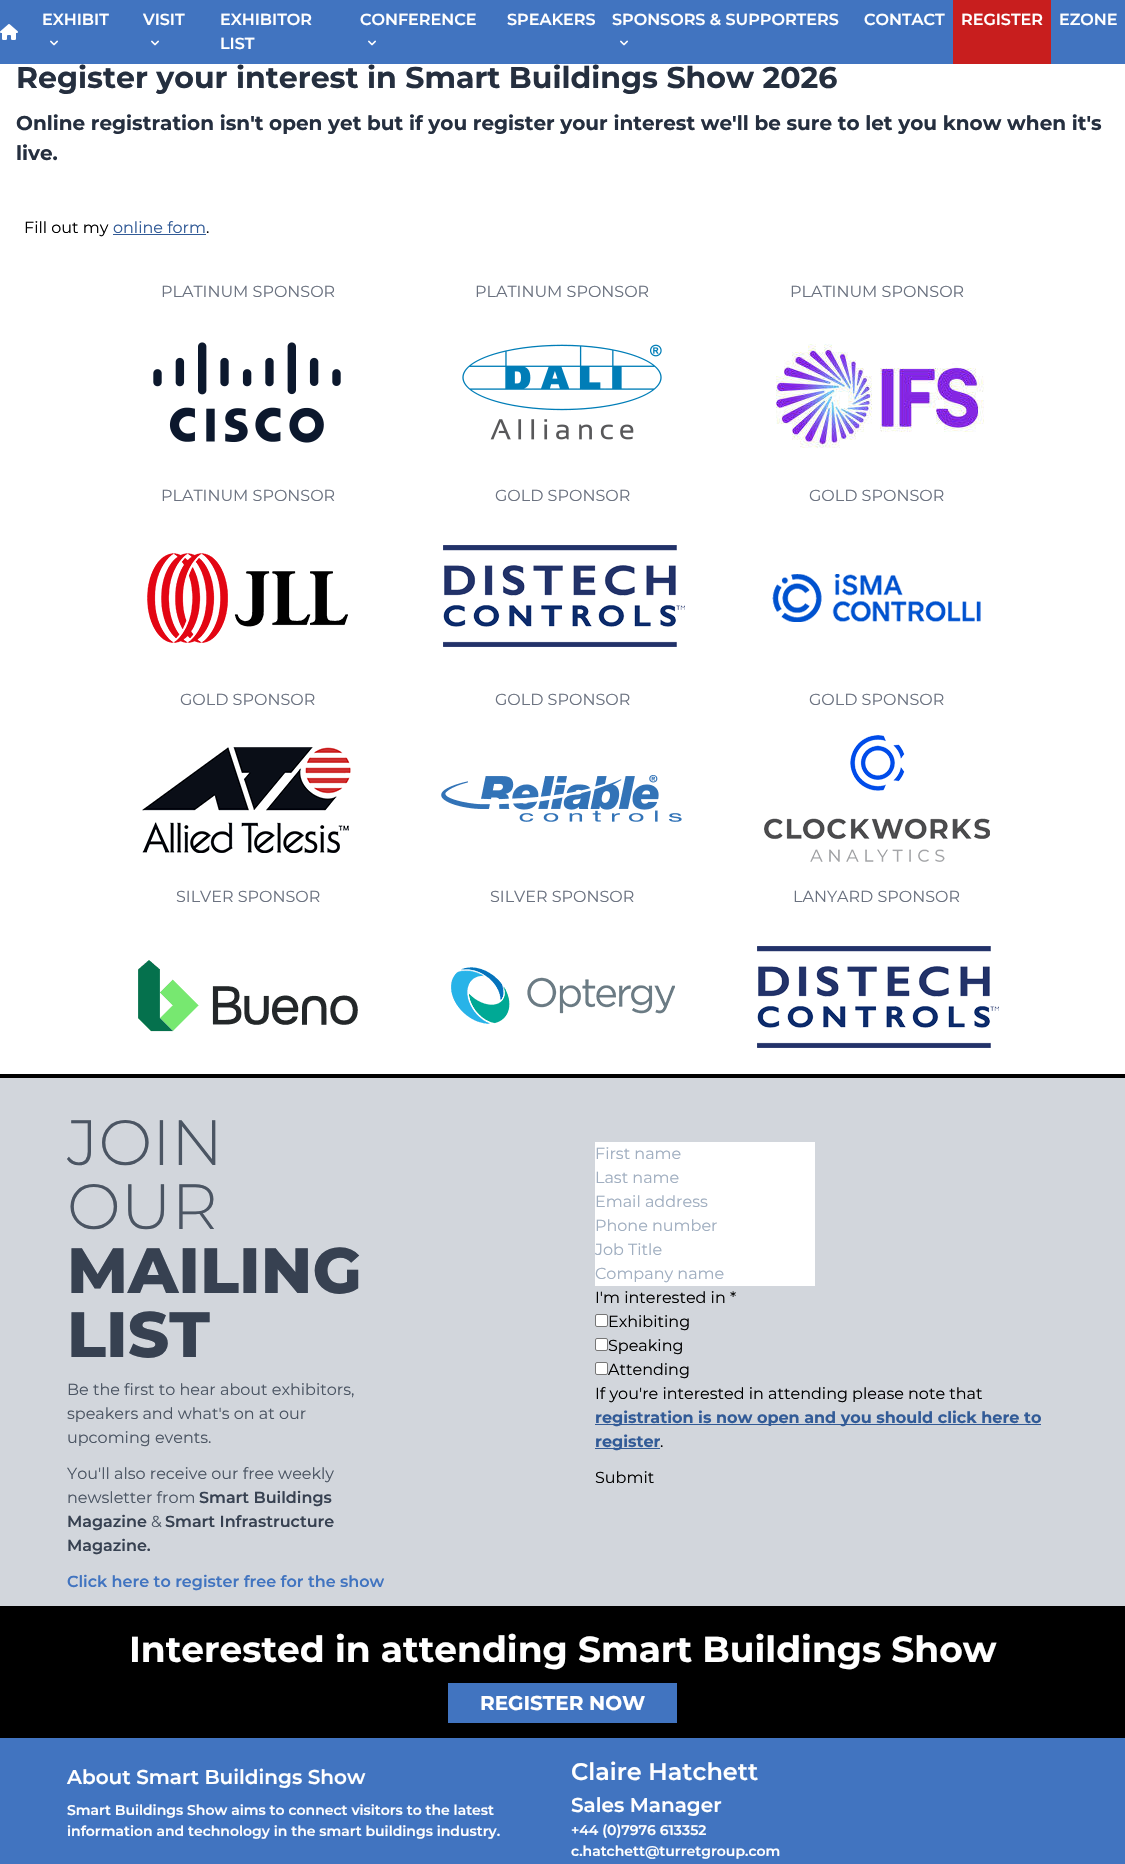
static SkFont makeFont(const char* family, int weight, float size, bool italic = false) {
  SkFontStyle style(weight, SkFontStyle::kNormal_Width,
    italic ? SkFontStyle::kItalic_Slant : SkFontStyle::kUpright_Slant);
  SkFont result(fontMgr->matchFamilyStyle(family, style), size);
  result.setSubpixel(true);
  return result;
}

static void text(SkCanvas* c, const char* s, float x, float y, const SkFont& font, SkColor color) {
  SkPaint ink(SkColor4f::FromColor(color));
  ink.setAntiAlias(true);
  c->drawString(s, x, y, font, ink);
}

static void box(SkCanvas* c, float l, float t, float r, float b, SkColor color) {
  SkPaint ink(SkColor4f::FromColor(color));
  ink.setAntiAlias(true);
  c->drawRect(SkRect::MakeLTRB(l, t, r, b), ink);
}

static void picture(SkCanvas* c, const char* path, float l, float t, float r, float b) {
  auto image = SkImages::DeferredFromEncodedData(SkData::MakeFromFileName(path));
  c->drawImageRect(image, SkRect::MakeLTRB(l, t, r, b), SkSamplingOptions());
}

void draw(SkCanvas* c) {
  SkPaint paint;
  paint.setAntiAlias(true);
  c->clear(0xffffffff);
  box(c, 0, 0, 1125, 64, 0xff4174c0);
  SkFont face1 = makeFont("Montserrat", 600, 16);
  text(c, "EXHIBIT", 42, 25, face1, 0xffffffff);
  picture(c, "img_01.png", 50, 40, 58, 46);
  text(c, "VISIT", 143, 25, face1, 0xffffffff);
  picture(c, "img_01.png", 151, 40, 159, 46);
  text(c, "EXHIBITOR", 220, 25, face1, 0xffffffff);
  text(c, "LIST", 220, 49, face1, 0xffffffff);
  text(c, "CONFERENCE", 360, 25, face1, 0xffffffff);
  picture(c, "img_01.png", 368, 40, 376, 46);
  text(c, "SPEAKERS", 507, 25, face1, 0xffffffff);
  text(c, "SPONSORS & SUPPORTERS", 612, 25, face1, 0xffffffff);
  picture(c, "img_01.png", 620, 40, 628, 46);
  text(c, "CONTACT", 864, 25, face1, 0xffffffff);
  box(c, 953, 0, 1051, 64, 0xffc81e1e);
  text(c, "REGISTER", 961, 25, face1, 0xffffffff);
  text(c, "EZONE", 1059, 25, face1, 0xffffffff);
  picture(c, "img_02.png", 0, 24, 18, 40);
  SkFont face2 = makeFont("Montserrat", 700, 30);
  text(c, "Register your interest in Smart Buildings Show 2026", 16, 88, face2, 0xff252f3f);
  SkFont face3 = makeFont("Montserrat", 700, 20);
  text(c, "Online registration isn't open yet but if you register your interest we'll be sure to let you know when it's", 16, 130, face3, 0xff252f3f);
  text(c, "live.", 16, 160, face3, 0xff252f3f);
  SkFont face4 = makeFont("Montserrat", 400, 16);
  text(c, "Fill out my", 24, 233, face4, 0xff000000);
  text(c, "online form", 113, 233, face4, 0xff325b97);
  box(c, 113, 234, 206, 235, 0xff325b97);
  text(c, ".", 206, 233, face4, 0xff000000);
  text(c, "PLATINUM SPONSOR", 161, 297, face4, 0xff6b7280);
  picture(c, "img_03.png", 153, 342, 341, 443);
  text(c, "PLATINUM SPONSOR", 475, 297, face4, 0xff6b7280);
  picture(c, "img_04.png", 462, 344, 662, 440);
  text(c, "PLATINUM SPONSOR", 790, 297, face4, 0xff6b7280);
  picture(c, "img_05.png", 776, 344, 984, 448);
  text(c, "PLATINUM SPONSOR", 161, 501, face4, 0xff6b7280);
  picture(c, "img_06.png", 147, 553, 348, 643);
  text(c, "GOLD SPONSOR", 495, 501, face4, 0xff6b7280);
  picture(c, "img_07.png", 443, 545, 685, 647);
  text(c, "GOLD SPONSOR", 809, 501, face4, 0xff6b7280);
  picture(c, "img_08.png", 772, 574, 981, 622);
  text(c, "GOLD SPONSOR", 180, 705, face4, 0xff6b7280);
  picture(c, "img_09.png", 142, 747, 351, 853);
  text(c, "GOLD SPONSOR", 495, 705, face4, 0xff6b7280);
  picture(c, "img_10.png", 441, 775, 682, 822);
  text(c, "GOLD SPONSOR", 809, 705, face4, 0xff6b7280);
  picture(c, "img_11.png", 764, 735, 990, 862);
  text(c, "SILVER SPONSOR", 176, 902, face4, 0xff6b7280);
  picture(c, "img_12.png", 138, 960, 358, 1032);
  text(c, "SILVER SPONSOR", 490, 902, face4, 0xff6b7280);
  picture(c, "img_13.png", 451, 967, 675, 1024);
  text(c, "LANYARD SPONSOR", 793, 902, face4, 0xff6b7280);
  picture(c, "img_07.png", 757, 946, 999, 1048);
  box(c, 0, 1078, 1125, 1606, 0xffd2d6dc);
  box(c, 0, 1074, 1125, 1078, 0xff000000);
  SkFont face5 = makeFont("Montserrat", 300, 64);
  text(c, "JOIN", 67, 1165, face5, 0xff4b5563);
  text(c, "OUR", 67, 1229, face5, 0xff4b5563);
  SkFont face6 = makeFont("Montserrat", 800, 64);
  text(c, "MAILING", 67, 1293, face6, 0xff374151);
  text(c, "LIST", 67, 1357, face6, 0xff374151);
  text(c, "Be the first to hear about exhibitors,", 67, 1395, face4, 0xff4b5563);
  text(c, "speakers and what's on at our", 67, 1419, face4, 0xff4b5563);
  text(c, "upcoming events.", 67, 1443, face4, 0xff4b5563);
  text(c, "You'll also receive our free weekly", 67, 1479, face4, 0xff4b5563);
  text(c, "newsletter from", 67, 1503, face4, 0xff4b5563);
  text(c, "Smart Buildings", 199, 1503, face1, 0xff374151);
  text(c, "Magazine", 67, 1527, face1, 0xff374151);
  text(c, "&", 151, 1527, face4, 0xff4b5563);
  text(c, "Smart Infrastructure", 165, 1527, face1, 0xff374151);
  text(c, "Magazine.", 67, 1551, face1, 0xff374151);
  text(c, "Click here to register free for the show", 67, 1587, face1, 0xff4174c0);
  box(c, 595, 1142, 815, 1286, 0xffffffff);
  text(c, "First name", 595, 1159, face4, 0xffa0aec0);
  text(c, "Last name", 595, 1183, face4, 0xffa0aec0);
  text(c, "Email address", 595, 1207, face4, 0xffa0aec0);
  text(c, "Phone number", 595, 1231, face4, 0xffa0aec0);
  text(c, "Job Title", 595, 1255, face4, 0xffa0aec0);
  text(c, "Company name", 595, 1279, face4, 0xffa0aec0);
  text(c, "I'm interested in *", 595, 1303, face4, 0xff000000);
  paint.setColor(0xffffffff);
  c->drawRoundRect(SkRect::MakeLTRB(595.5f, 1314.5f, 607.5f, 1326.5f), 1.5f, 1.5f, paint);
  paint.setStyle(SkPaint::kStroke_Style);
  paint.setStrokeWidth(1);
  paint.setColor(0xff767676);
  c->drawRoundRect(SkRect::MakeLTRB(595.5f, 1314.5f, 607.5f, 1326.5f), 1.5f, 1.5f, paint);
  text(c, "Exhibiting", 608, 1327, face4, 0xff000000);
  paint.setStyle(SkPaint::kFill_Style);
  paint.setColor(0xffffffff);
  c->drawRoundRect(SkRect::MakeLTRB(595.5f, 1338.5f, 607.5f, 1350.5f), 1.5f, 1.5f, paint);
  paint.setStyle(SkPaint::kStroke_Style);
  paint.setColor(0xff767676);
  c->drawRoundRect(SkRect::MakeLTRB(595.5f, 1338.5f, 607.5f, 1350.5f), 1.5f, 1.5f, paint);
  text(c, "Speaking", 608, 1351, face4, 0xff000000);
  paint.setStyle(SkPaint::kFill_Style);
  paint.setColor(0xffffffff);
  c->drawRoundRect(SkRect::MakeLTRB(595.5f, 1362.5f, 607.5f, 1374.5f), 1.5f, 1.5f, paint);
  paint.setStyle(SkPaint::kStroke_Style);
  paint.setColor(0xff767676);
  c->drawRoundRect(SkRect::MakeLTRB(595.5f, 1362.5f, 607.5f, 1374.5f), 1.5f, 1.5f, paint);
  text(c, "Attending", 608, 1375, face4, 0xff000000);
  text(c, "If you're interested in attending please note that", 595, 1399, face4, 0xff000000);
  box(c, 595, 1424, 1041, 1425, 0xff325b97);
  SkFont face7 = makeFont("Montserrat", 700, 16);
  text(c, "registration is now open and you should click here to", 595, 1423, face7, 0xff325b97);
  box(c, 595, 1448, 660, 1449, 0xff325b97);
  text(c, "register", 595, 1447, face7, 0xff325b97);
  text(c, ".", 660, 1447, face4, 0xff000000);
  text(c, "Submit", 595, 1483, face4, 0xff000000);
  box(c, 0, 1606, 1125, 1738, 0xff000000);
  SkFont face8 = makeFont("Montserrat", 700, 36);
  text(c, "Interested in attending Smart Buildings Show", 129, 1662, face8, 0xffffffff);
  box(c, 448, 1683, 677, 1723, 0xff4174c0);
  text(c, "REGISTER NOW", 480, 1710, face3, 0xffffffff);
  box(c, 0, 1738, 1125, 1864, 0xff4174c0);
  SkFont face9 = makeFont("Montserrat", 600, 20);
  text(c, "About Smart Buildings Show", 67, 1784, face9, 0xffffffff);
  SkFont face10 = makeFont("Montserrat", 600, 14);
  text(c, "Smart Buildings Show aims to connect visitors to the latest", 67, 1815, face10, 0xffffffff);
  text(c, "information and technology in the smart buildings industry.", 67, 1836, face10, 0xffffffff);
  SkFont face11 = makeFont("Montserrat", 600, 24);
  text(c, "Claire Hatchett", 571, 1780, face11, 0xffffffff);
  text(c, "Sales Manager", 571, 1812, face9, 0xffffffff);
  text(c, "+44 (0)7976 613352", 571, 1835, face10, 0xffffffff);
  text(c, "c.hatchett@turretgroup.com", 571, 1856, face10, 0xffffffff);
}
